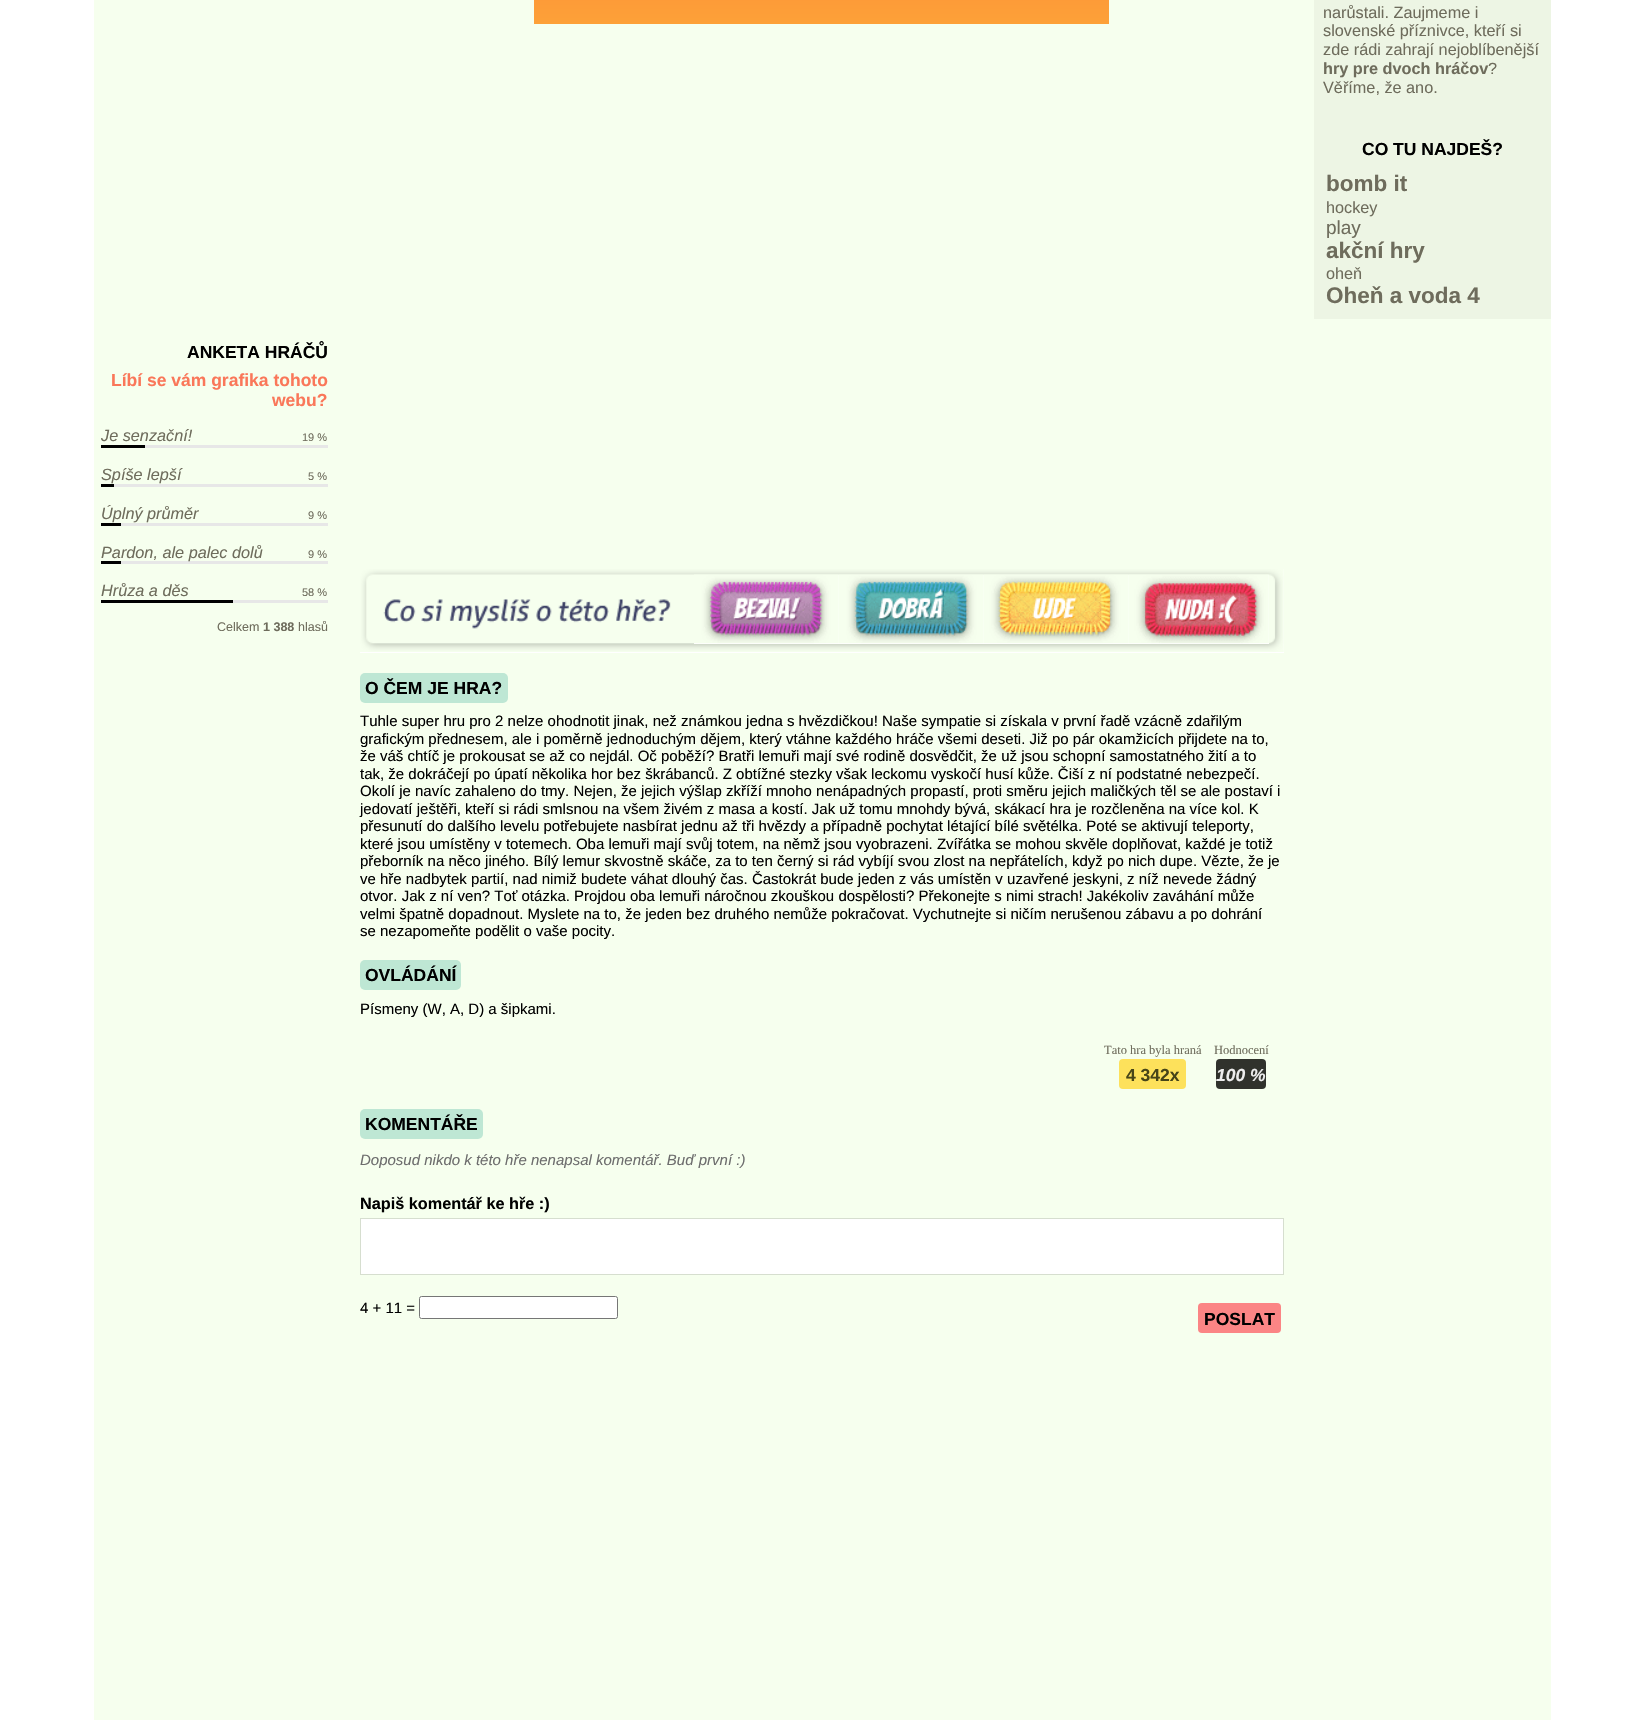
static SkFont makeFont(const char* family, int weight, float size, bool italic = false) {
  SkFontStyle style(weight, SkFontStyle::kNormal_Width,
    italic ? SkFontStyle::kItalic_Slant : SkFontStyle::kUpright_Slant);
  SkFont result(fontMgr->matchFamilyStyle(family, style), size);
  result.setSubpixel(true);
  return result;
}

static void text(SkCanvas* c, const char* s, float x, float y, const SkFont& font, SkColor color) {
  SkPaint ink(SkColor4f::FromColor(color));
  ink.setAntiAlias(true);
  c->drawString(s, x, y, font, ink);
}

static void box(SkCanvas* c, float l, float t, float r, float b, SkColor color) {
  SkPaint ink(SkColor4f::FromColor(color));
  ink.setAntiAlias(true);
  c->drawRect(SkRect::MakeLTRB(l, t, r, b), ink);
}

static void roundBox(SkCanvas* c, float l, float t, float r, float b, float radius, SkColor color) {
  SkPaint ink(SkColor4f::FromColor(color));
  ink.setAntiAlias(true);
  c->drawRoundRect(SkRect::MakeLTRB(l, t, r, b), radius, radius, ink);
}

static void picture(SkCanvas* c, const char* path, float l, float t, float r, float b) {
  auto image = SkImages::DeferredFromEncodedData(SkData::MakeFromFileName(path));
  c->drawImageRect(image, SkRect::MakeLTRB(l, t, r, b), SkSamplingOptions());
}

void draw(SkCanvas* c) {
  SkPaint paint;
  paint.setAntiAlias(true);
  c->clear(0xffffffff);
  box(c, 94, 0, 1551, 1720, 0xfff6ffee);
  box(c, 1314, 0, 1551, 319, 0xffedf5e4);
  SkFont face1 = makeFont("Liberation Sans", 400, 16.25f);
  text(c, "narůstali. Zaujmeme i", 1323, 18, face1, 0xff6e6c5c);
  text(c, "slovenské příznivce, kteří si", 1323, 36, face1, 0xff6e6c5c);
  text(c, "zde rádi zahrají nejoblíbenější", 1323, 55, face1, 0xff6e6c5c);
  SkFont face2 = makeFont("Liberation Sans", 700, 16.25f);
  text(c, "hry pre dvoch hráčov", 1323, 74, face2, 0xff6e6c5c);
  text(c, "?", 1488, 74, face1, 0xff6e6c5c);
  text(c, "Věříme, že ano.", 1323, 93, face1, 0xff6e6c5c);
  SkFont face3 = makeFont("Liberation Sans", 700, 17.5f);
  text(c, "CO TU NAJDEŠ?", 1362, 155, face3, 0xff000000);
  SkFont face4 = makeFont("Liberation Sans", 700, 22.5f);
  text(c, "bomb it", 1326, 191, face4, 0xff6e6c5c);
  text(c, "hockey", 1326, 213, face1, 0xff6e6c5c);
  SkFont face5 = makeFont("Liberation Sans", 400, 19);
  text(c, "play", 1326, 234, face5, 0xff6e6c5c);
  text(c, "akční hry", 1326, 258, face4, 0xff6e6c5c);
  text(c, "oheň", 1326, 279, face1, 0xff6e6c5c);
  text(c, "Oheň a voda 4", 1326, 303, face4, 0xff6e6c5c);
  text(c, "ANKETA HRÁČŮ", 187, 358, face3, 0xff000000);
  text(c, "Líbí se vám grafika tohoto", 111, 386, face3, 0xfffa7759);
  text(c, "webu?", 272, 406, face3, 0xfffa7759);
  SkFont face6 = makeFont("Liberation Sans", 400, 16.25f, true);
  text(c, "Je senzační!", 101, 441, face6, 0xff6e6c5c);
  SkFont face7 = makeFont("Liberation Sans", 400, 11);
  text(c, "19 %", 302, 441, face7, 0xff6e6c5c);
  box(c, 145, 445, 328, 448, 0xffe7e7e7);
  box(c, 101, 445, 145, 448, 0xff000000);
  text(c, "Spíše lepší", 101, 480, face6, 0xff6e6c5c);
  text(c, "5 %", 308, 480, face7, 0xff6e6c5c);
  box(c, 114, 484, 328, 487, 0xffe7e7e7);
  box(c, 101, 484, 114, 487, 0xff000000);
  text(c, "Úplný průměr", 101, 519, face6, 0xff6e6c5c);
  text(c, "9 %", 308, 519, face7, 0xff6e6c5c);
  box(c, 121, 523, 328, 526, 0xffe7e7e7);
  box(c, 101, 523, 121, 526, 0xff000000);
  box(c, 121, 561, 328, 564, 0xffe7e7e7);
  box(c, 101, 561, 121, 564, 0xff000000);
  text(c, "Pardon, ale palec dolů", 101, 558, face6, 0xff6e6c5c);
  text(c, "9 %", 308, 558, face7, 0xff6e6c5c);
  text(c, "Hrůza a děs", 101, 596, face6, 0xff6e6c5c);
  text(c, "58 %", 302, 596, face7, 0xff6e6c5c);
  box(c, 233, 600, 328, 603, 0xffe7e7e7);
  box(c, 101, 600, 233, 603, 0xff000000);
  SkFont face8 = makeFont("Liberation Sans", 400, 12.5f);
  text(c, "Celkem", 217, 631, face8, 0xff6e6c5c);
  SkFont face9 = makeFont("Liberation Sans", 700, 12.5f);
  text(c, "1 388", 263, 631, face9, 0xff6e6c5c);
  text(c, "hlasů", 298, 631, face8, 0xff6e6c5c);
  {
    const SkColor colors[] = {0xfffd3a40, 0xfffda138};
    const float stops[] = {0, 1};
    const SkPoint ends[] = {{821, -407}, {821, 24}};
    paint.setShader(SkGradientShader::MakeLinear(ends, colors, stops, 2, SkTileMode::kClamp));
    paint.setAlpha(255);
  }
  c->drawRect(SkRect::MakeLTRB(534, 0, 1109, 24), paint);
  box(c, 360, 569, 1284, 653, 0xffffffff);
  picture(c, "img_01.png", 360, 569, 1284, 652);
  box(c, 694, 575, 1269, 644, 0xffffffff);
  picture(c, "img_02.png", 694, 574, 839, 644);
  picture(c, "img_03.png", 839, 574, 984, 644);
  picture(c, "img_04.png", 984, 574, 1129, 644);
  picture(c, "img_05.png", 1129, 574, 1269, 644);
  roundBox(c, 360, 673, 508, 703, 5, 0xffbee7d4);
  text(c, "O ČEM JE HRA?", 365, 694, face3, 0xff000000);
  SkFont face10 = makeFont("Liberation Sans", 400, 15);
  text(c, "Tuhle super hru pro 2 nelze ohodnotit jinak, než známkou jedna s hvězdičkou! Naše sympatie si získala v první řadě vzácně zdařilým", 360, 726, face10, 0xff000000);
  text(c, "grafickým přednesem, ale i poměrně jednoduchým dějem, který vtáhne každého hráče všemi deseti. Již po pár okamžicích přijdete na to,", 360, 744, face10, 0xff000000);
  text(c, "že váš chtíč je prokousat se až co nejdál. Oč poběží? Bratři lemuři mají své rodině dosvědčit, že už jsou schopní samostatného žití a to", 360, 761, face10, 0xff000000);
  text(c, "tak, že dokráčejí po úpatí několika hor bez škrábanců. Z obtížné stezky však leckomu vyskočí husí kůže. Čiší z ní podstatné nebezpečí.", 360, 779, face10, 0xff000000);
  text(c, "Okolí je navíc zahaleno do tmy. Nejen, že jejich výšlap zkříží mnoho nenápadných propastí, proti směru jejich maličkých těl se ale postaví i", 360, 796, face10, 0xff000000);
  text(c, "jedovatí ještěři, kteří si rádi smlsnou na všem živém z masa a kostí. Jak už tomu mnohdy bývá, skákací hra je rozčleněna na více kol. K", 360, 814, face10, 0xff000000);
  text(c, "přesunutí do dalšího levelu potřebujete nasbírat jednu až tři hvězdy a případně pochytat létající bílé světélka. Poté se aktivují teleporty,", 360, 831, face10, 0xff000000);
  text(c, "které jsou umístěny v totemech. Oba lemuři mají svůj totem, na němž jsou vyobrazeni. Zvířátka se mohou skvěle doplňovat, každé je totiž", 360, 849, face10, 0xff000000);
  text(c, "přeborník na něco jiného. Bílý lemur skvostně skáče, za to ten černý si rád vybíjí svou zlost na nepřátelích, když po nich dupe. Vězte, že je", 360, 866, face10, 0xff000000);
  text(c, "ve hře nadbytek partií, nad nimiž budete váhat dlouhý čas. Častokrát bude jeden z vás umístěn v uzavřené jeskyni, z níž nevede žádný", 360, 884, face10, 0xff000000);
  text(c, "otvor. Jak z ní ven? Toť otázka. Projdou oba lemuři náročnou zkouškou dospělosti? Překonejte s nimi strach! Jakékoliv zaváhání může", 360, 901, face10, 0xff000000);
  text(c, "velmi špatně dopadnout. Myslete na to, že jeden bez druhého nemůže pokračovat. Vychutnejte si ničím nerušenou zábavu a po dohrání", 360, 919, face10, 0xff000000);
  text(c, "se nezapomeňte podělit o vaše pocity.", 360, 936, face10, 0xff000000);
  roundBox(c, 360, 960, 461, 990, 5, 0xffbee7d4);
  text(c, "OVLÁDÁNÍ", 365, 981, face3, 0xff000000);
  text(c, "Písmeny (W, A, D) a šipkami.", 360, 1014, face10, 0xff000000);
  SkFont face11 = makeFont("Liberation Serif", 400, 12.5f);
  text(c, "Tato hra byla hraná", 1104, 1054, face11, 0xff6e6c5c);
  roundBox(c, 1119, 1059, 1186, 1089, 4, 0xfffde15b);
  text(c, "4 342x", 1126, 1081, face3, 0xff474518);
  text(c, "Hodnocení", 1214, 1054, face11, 0xff6e6c5c);
  roundBox(c, 1216, 1059, 1266, 1089, 4, 0xff30322c);
  SkFont face12 = makeFont("Liberation Sans", 700, 17.5f, true);
  text(c, "100 %", 1216, 1081, face12, 0xffededed);
  roundBox(c, 360, 1109, 483, 1139, 5, 0xffbee7d4);
  text(c, "KOMENTÁŘE", 365, 1130, face3, 0xff000000);
  SkFont face13 = makeFont("Liberation Sans", 400, 15, true);
  text(c, "Doposud nikdo k této hře nenapsal komentář. Buď první :)", 360, 1165, face13, 0xff6d6d6d);
  text(c, "Napiš komentář ke hře :)", 360, 1209, face2, 0xff000000);
  paint.setShader(nullptr);
  paint.setColor(0xffffffff);
  c->drawRect(SkRect::MakeLTRB(360.5f, 1218.5f, 1283.5f, 1274.5f), paint);
  paint.setStyle(SkPaint::kStroke_Style);
  paint.setStrokeWidth(1);
  paint.setColor(0xffd6decf);
  c->drawRect(SkRect::MakeLTRB(360.5f, 1218.5f, 1283.5f, 1274.5f), paint);
  text(c, "4 + 11 =", 360, 1313, face10, 0xff000000);
  paint.setStyle(SkPaint::kFill_Style);
  paint.setColor(0xffffffff);
  c->drawRoundRect(SkRect::MakeLTRB(419.5f, 1296.5f, 617.5f, 1318.5f), 2, 2, paint);
  paint.setStyle(SkPaint::kStroke_Style);
  paint.setColor(0xff767676);
  c->drawRoundRect(SkRect::MakeLTRB(419.5f, 1296.5f, 617.5f, 1318.5f), 2, 2, paint);
  roundBox(c, 1198, 1303, 1281, 1333, 4, 0xfffb8585);
  text(c, "POSLAT", 1204, 1325, face3, 0xff000000);
}
